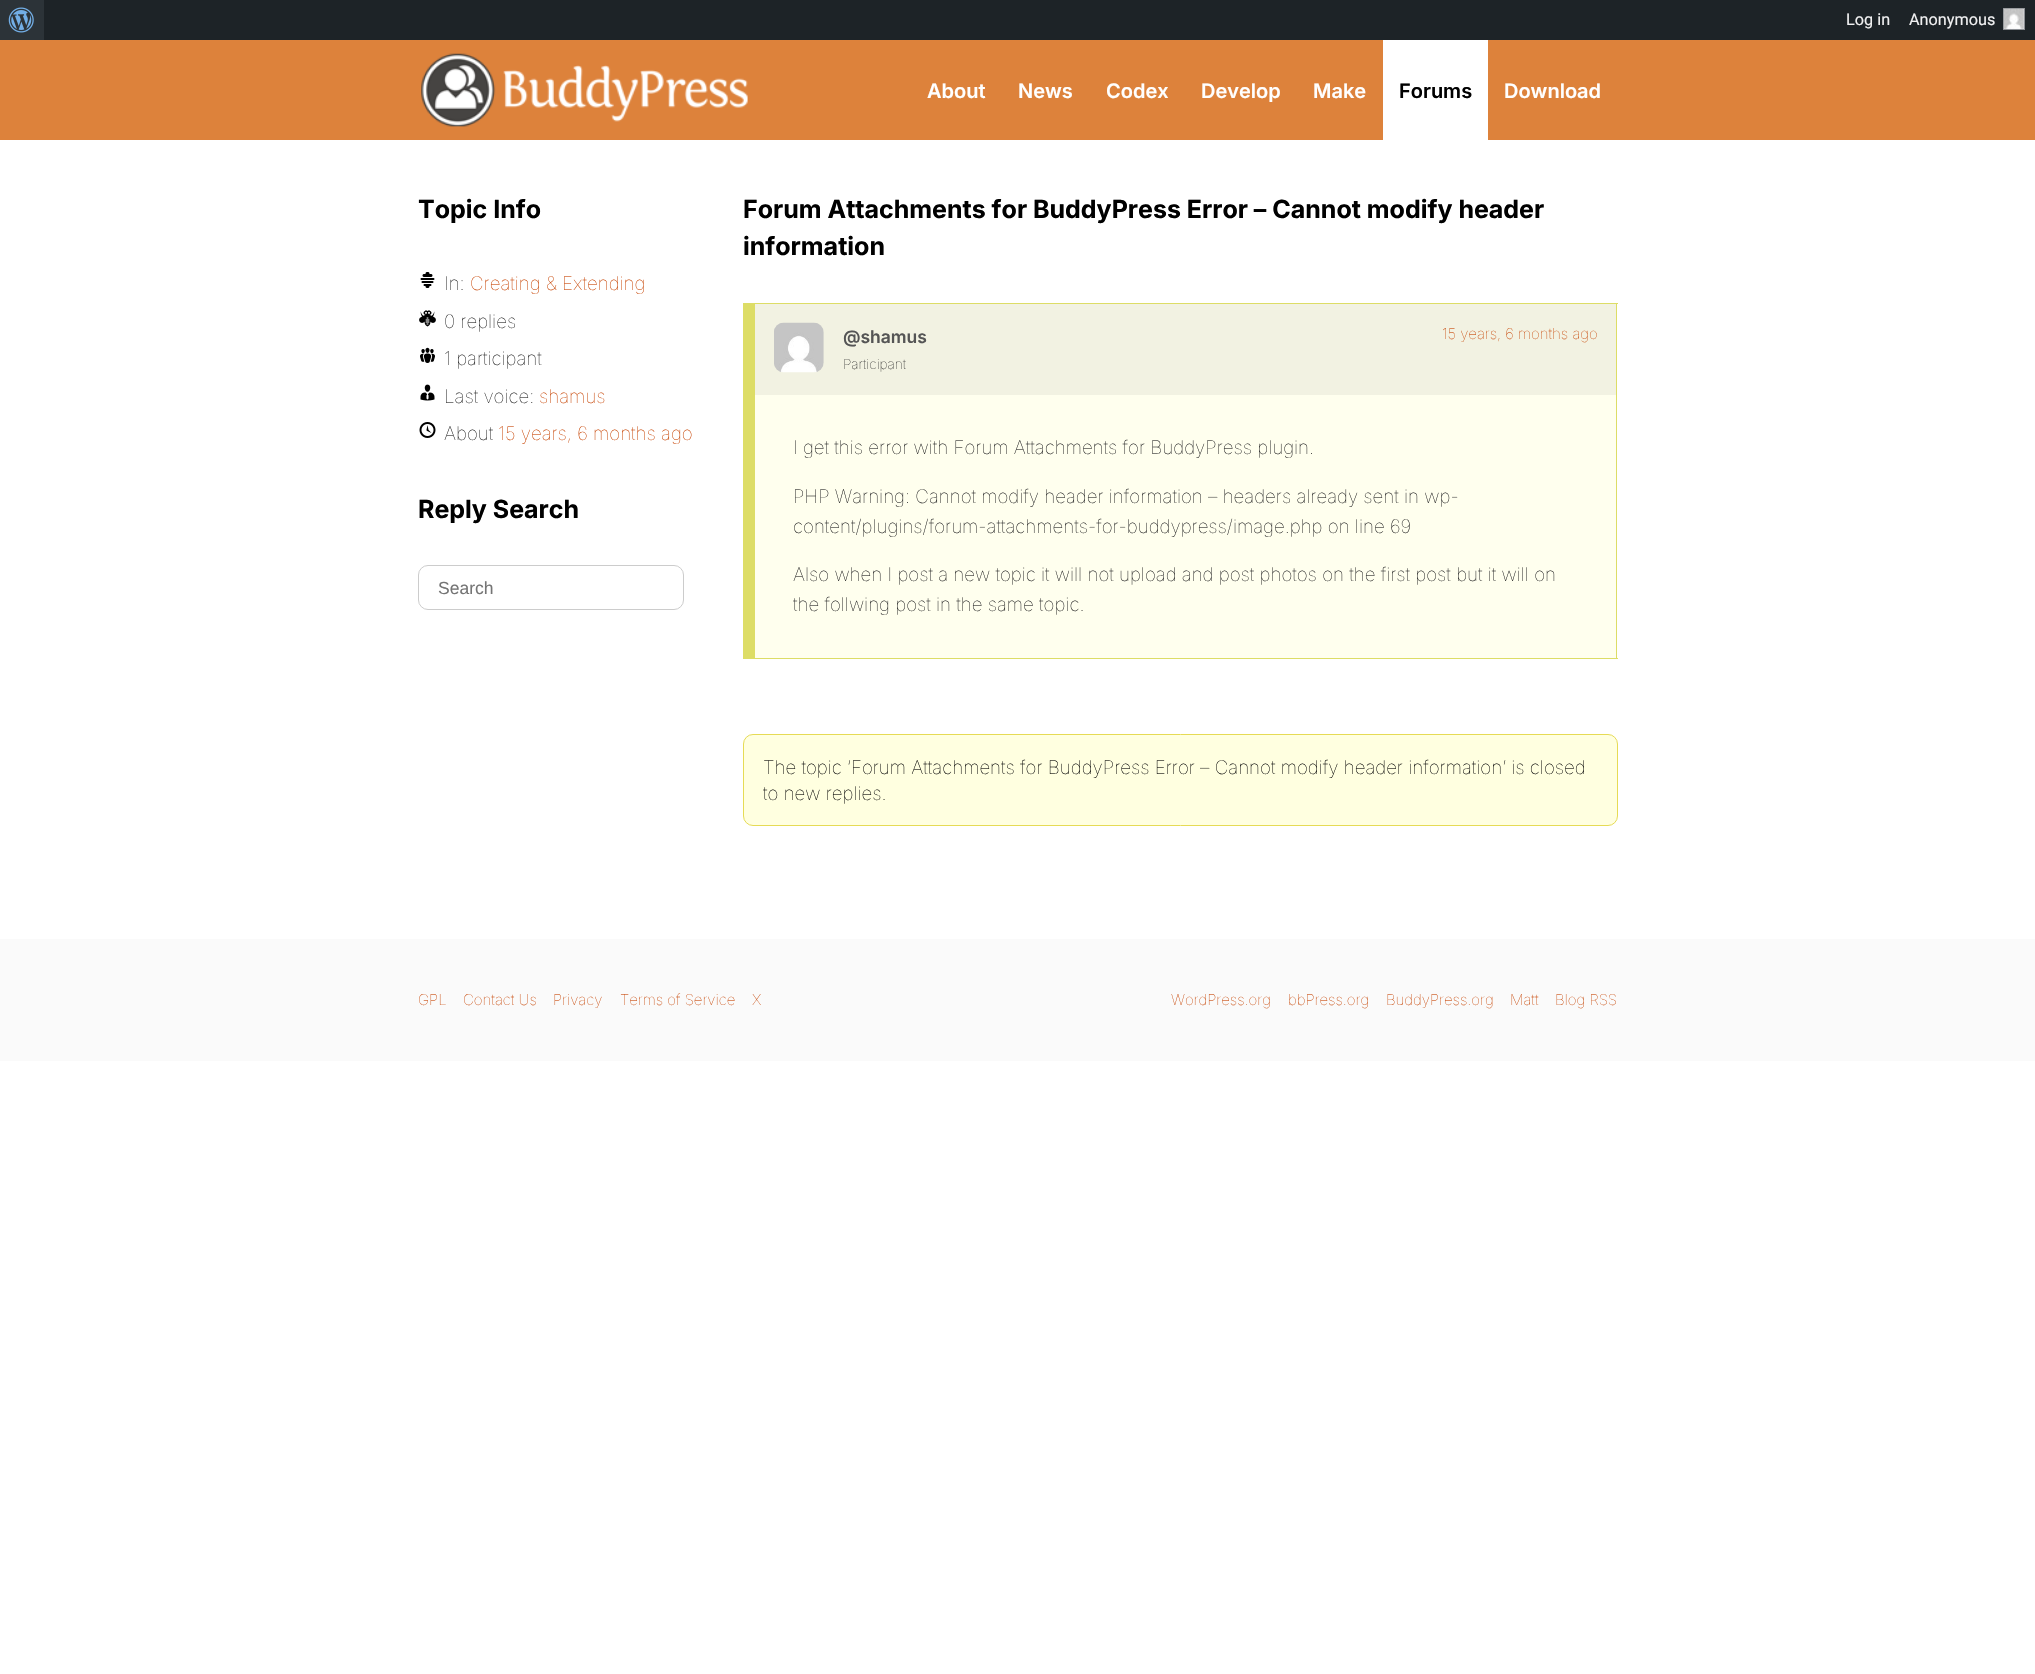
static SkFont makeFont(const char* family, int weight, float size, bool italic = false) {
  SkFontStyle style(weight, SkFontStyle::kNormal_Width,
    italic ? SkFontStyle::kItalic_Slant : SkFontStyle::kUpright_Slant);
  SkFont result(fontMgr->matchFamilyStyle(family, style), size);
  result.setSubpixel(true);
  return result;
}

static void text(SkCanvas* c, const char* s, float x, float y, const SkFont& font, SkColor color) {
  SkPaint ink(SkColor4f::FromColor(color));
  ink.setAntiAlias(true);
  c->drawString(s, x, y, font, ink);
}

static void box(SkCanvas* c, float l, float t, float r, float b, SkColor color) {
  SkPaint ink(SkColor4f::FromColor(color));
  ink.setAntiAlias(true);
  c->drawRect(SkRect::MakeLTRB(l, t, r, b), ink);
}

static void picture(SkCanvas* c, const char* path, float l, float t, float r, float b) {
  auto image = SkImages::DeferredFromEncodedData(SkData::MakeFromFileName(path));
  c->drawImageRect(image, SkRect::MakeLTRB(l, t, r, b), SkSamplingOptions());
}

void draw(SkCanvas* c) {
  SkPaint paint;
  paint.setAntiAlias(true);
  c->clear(0xffffffff);
  box(c, 44, 0, 2035, 40, 0xff1d2327);
  box(c, 0, 0, 44, 40, 0xff2c3338);
  picture(c, "img_01.png", 8, 7, 34, 33);
  SkFont face1 = makeFont("Roboto", 400, 16.25f);
  text(c, "Log in", 1846, 25, face1, 0xfff0f0f1);
  paint.setColor(0xfff0f0f1);
  c->drawRect(SkRect::MakeLTRB(2003.5f, 8.5f, 2024.5f, 29.5f), paint);
  paint.setStyle(SkPaint::kStroke_Style);
  paint.setStrokeWidth(1);
  paint.setColor(0xff8c8f94);
  c->drawRect(SkRect::MakeLTRB(2003.5f, 8.5f, 2024.5f, 29.5f), paint);
  text(c, "Anonymous", 1909, 25, face1, 0xfff0f0f1);
  picture(c, "img_02.png", 2003, 8, 2024, 29);
  box(c, 0, 40, 2035, 140, 0xffdd823b);
  picture(c, "img_03.png", 421, 53, 748, 127);
  SkFont face2 = makeFont("Inter", 600, 20);
  text(c, "About", 927, 98, face2, 0xffffffff);
  text(c, "News", 1018, 98, face2, 0xffffffff);
  text(c, "Codex", 1106, 98, face2, 0xffffffff);
  text(c, "Develop", 1201, 98, face2, 0xffffffff);
  text(c, "Make", 1313, 98, face2, 0xffffffff);
  box(c, 1383, 40, 1488, 140, 0xffffffff);
  text(c, "Forums", 1399, 98, face2, 0xff000000);
  text(c, "Download", 1504, 98, face2, 0xffffffff);
  SkFont face3 = makeFont("Inter", 700, 25);
  text(c, "Topic Info", 418, 218, face3, 0xff000000);
  picture(c, "img_04.png", 420, 272, 435, 288);
  SkFont face4 = makeFont("Inter", 100, 18.75f);
  text(c, "In:", 444, 290, face4, 0xff222222);
  text(c, "Creating & Extending", 470, 290, face4, 0xffc74200);
  picture(c, "img_05.png", 419, 310, 436, 327);
  text(c, "0 replies", 444, 328, face4, 0xff222222);
  picture(c, "img_06.png", 420, 347, 435, 363);
  text(c, "1 participant", 444, 365, face4, 0xff222222);
  picture(c, "img_07.png", 420, 384, 435, 401);
  text(c, "Last voice:", 444, 403, face4, 0xff222222);
  text(c, "shamus", 539, 403, face4, 0xffc74200);
  picture(c, "img_08.png", 419, 422, 436, 438);
  text(c, "About", 444, 440, face4, 0xff222222);
  text(c, "15 years, 6 months ago", 498, 440, face4, 0xffc74200);
  text(c, "Reply Search", 418, 518, face3, 0xff000000);
  paint.setColor(0xffcccccc);
  c->drawRoundRect(SkRect::MakeLTRB(418.5f, 565.5f, 683.5f, 609.5f), 9.5f, 9.5f, paint);
  SkFont face5 = makeFont("Liberation Sans", 400, 17.5f);
  text(c, "Search", 438, 594, face5, 0xff757575);
  text(c, "Forum Attachments for BuddyPress Error – Cannot modify header", 743, 218, face3, 0xff000000);
  text(c, "information", 743, 255, face3, 0xff000000);
  box(c, 755, 303, 1618, 304, 0xffdddd66);
  box(c, 1616, 303, 1617, 659, 0xffdddd66);
  box(c, 755, 658, 1618, 659, 0xffdddd66);
  box(c, 743, 303, 755, 659, 0xffdddd66);
  box(c, 755, 395, 1616, 658, 0xffffffee);
  box(c, 755, 304, 1616, 395, 0xfff2f2e2);
  picture(c, "img_09.png", 774, 322, 824, 373);
  SkFont face6 = makeFont("Inter", 600, 17.5f);
  text(c, "@shamus", 843, 343, face6, 0xff555555);
  SkFont face7 = makeFont("Inter", 100, 13.75f);
  text(c, "Participant", 843, 369, face7, 0xff222222);
  SkFont face8 = makeFont("Inter", 100, 15);
  text(c, "15 years, 6 months ago", 1442, 339, face8, 0xffc74200);
  text(c, "I get this error with Forum Attachments for BuddyPress plugin.", 793, 454, face4, 0xff222222);
  text(c, "PHP Warning: Cannot modify header information – headers already sent in wp-", 793, 503, face4, 0xff222222);
  text(c, "content/plugins/forum-attachments-for-buddypress/image.php on line 69", 793, 533, face4, 0xff222222);
  text(c, "Also when I post a new topic it will not upload and post photos on the first post but it will on", 793, 581, face4, 0xff222222);
  text(c, "the follwing post in the same topic.", 793, 611, face4, 0xff222222);
  paint.setStyle(SkPaint::kFill_Style);
  paint.setColor(0xffffffe0);
  c->drawRoundRect(SkRect::MakeLTRB(743.5f, 734.5f, 1617.5f, 825.5f), 9.5f, 9.5f, paint);
  paint.setStyle(SkPaint::kStroke_Style);
  paint.setColor(0xffe6db55);
  c->drawRoundRect(SkRect::MakeLTRB(743.5f, 734.5f, 1617.5f, 825.5f), 9.5f, 9.5f, paint);
  text(c, "The topic ‘Forum Attachments for BuddyPress Error – Cannot modify header information’ is closed", 763, 774, face4, 0xff000000);
  text(c, "to new replies.", 763, 800, face4, 0xff000000);
  box(c, 0, 939, 2035, 1061, 0xfffafafa);
  text(c, "GPL", 418, 1005, face8, 0xffc74200);
  text(c, "Contact Us", 463, 1005, face8, 0xffc74200);
  text(c, "Privacy", 553, 1005, face8, 0xffc74200);
  text(c, "Terms of Service", 620, 1005, face8, 0xffc74200);
  text(c, "X", 752, 1005, face8, 0xffc74200);
  text(c, "WordPress.org", 1171, 1005, face8, 0xffc74200);
  text(c, "bbPress.org", 1288, 1005, face8, 0xffc74200);
  text(c, "BuddyPress.org", 1386, 1005, face8, 0xffc74200);
  text(c, "Matt", 1510, 1005, face8, 0xffc74200);
  text(c, "Blog RSS", 1555, 1005, face8, 0xffc74200);
}
